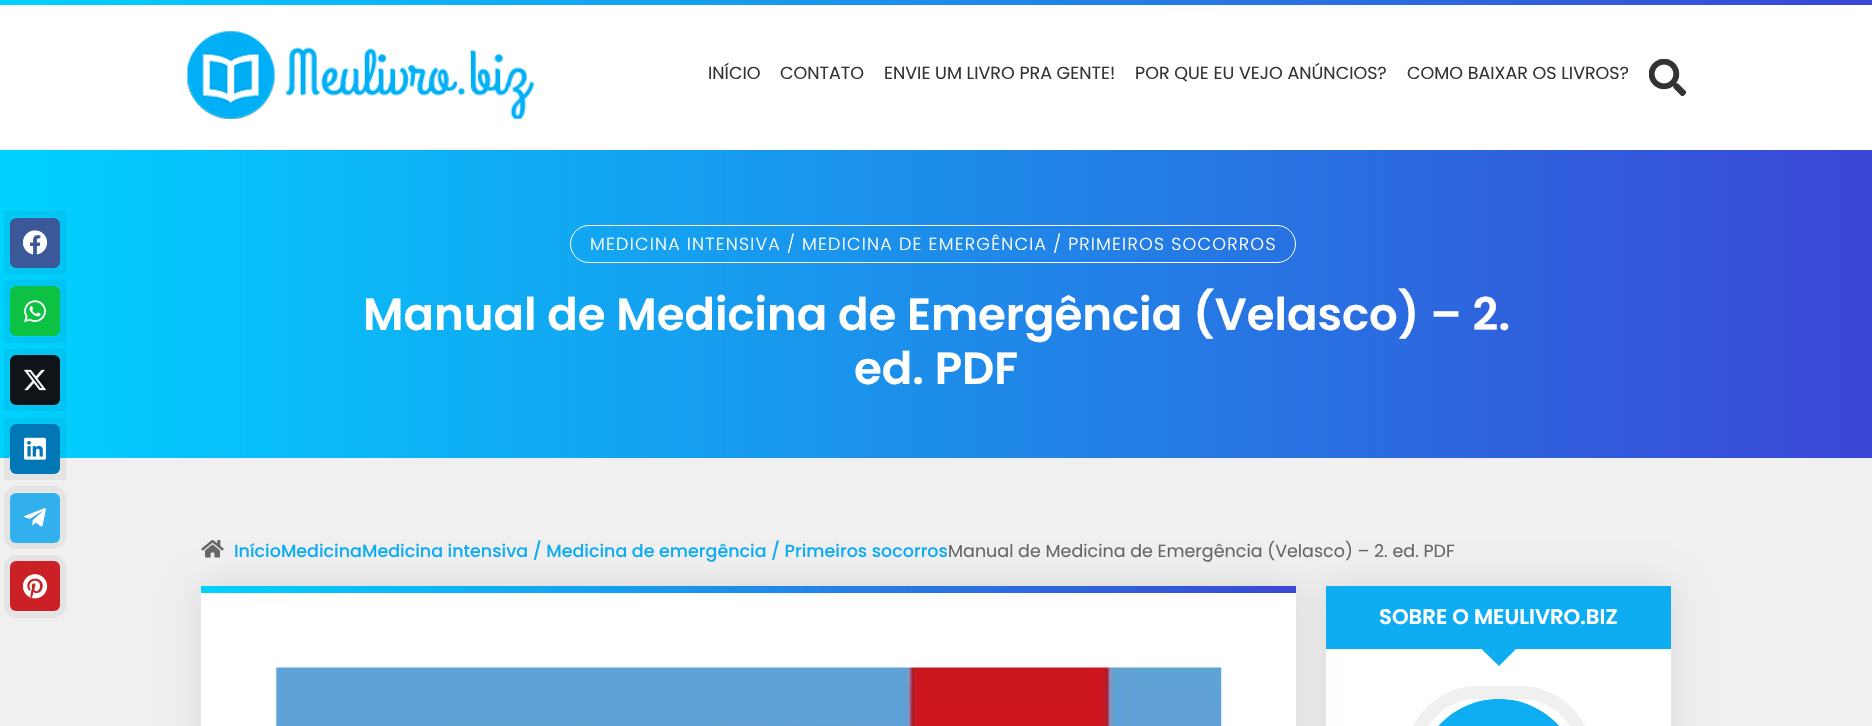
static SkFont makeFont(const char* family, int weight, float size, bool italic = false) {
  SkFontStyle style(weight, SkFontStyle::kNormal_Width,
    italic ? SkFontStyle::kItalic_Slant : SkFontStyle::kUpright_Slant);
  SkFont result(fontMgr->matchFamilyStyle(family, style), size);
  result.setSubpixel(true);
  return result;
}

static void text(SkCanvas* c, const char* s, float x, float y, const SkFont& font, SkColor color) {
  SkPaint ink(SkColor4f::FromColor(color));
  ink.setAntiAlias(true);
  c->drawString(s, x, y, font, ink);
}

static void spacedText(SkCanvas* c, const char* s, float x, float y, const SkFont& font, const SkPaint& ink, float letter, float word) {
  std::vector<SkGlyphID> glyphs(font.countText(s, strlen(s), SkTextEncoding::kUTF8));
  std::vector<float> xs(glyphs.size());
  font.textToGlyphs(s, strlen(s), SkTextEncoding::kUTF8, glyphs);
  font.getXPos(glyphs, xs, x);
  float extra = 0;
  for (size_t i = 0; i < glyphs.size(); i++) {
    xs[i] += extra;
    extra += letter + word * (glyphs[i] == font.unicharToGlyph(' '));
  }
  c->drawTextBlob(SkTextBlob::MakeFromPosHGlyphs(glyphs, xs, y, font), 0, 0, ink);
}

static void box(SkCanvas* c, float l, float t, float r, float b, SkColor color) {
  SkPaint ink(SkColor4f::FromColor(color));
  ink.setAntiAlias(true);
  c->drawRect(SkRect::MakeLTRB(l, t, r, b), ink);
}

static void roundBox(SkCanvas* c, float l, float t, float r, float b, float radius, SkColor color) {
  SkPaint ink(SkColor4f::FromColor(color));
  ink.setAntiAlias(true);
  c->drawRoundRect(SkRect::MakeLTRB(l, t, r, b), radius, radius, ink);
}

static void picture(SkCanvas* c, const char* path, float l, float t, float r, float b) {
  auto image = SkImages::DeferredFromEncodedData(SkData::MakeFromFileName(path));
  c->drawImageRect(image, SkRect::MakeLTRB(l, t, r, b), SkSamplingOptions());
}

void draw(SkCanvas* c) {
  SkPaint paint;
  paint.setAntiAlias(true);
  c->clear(0xfff0f0f0);
  box(c, 0, 5, 1872, 150, 0xffffffff);
  {
    const SkColor colors[] = {0xff00d2ff, 0xff3a47d5};
    const float stops[] = {0, 1};
    const SkPoint ends[] = {{0, 2.5f}, {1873, 2.5f}};
    paint.setShader(SkGradientShader::MakeLinear(ends, colors, stops, 2, SkTileMode::kClamp));
    paint.setAlpha(255);
  }
  c->drawRect(SkRect::MakeLTRB(0, 0, 1872, 5), paint);
  picture(c, "img_01.png", 187, 31, 535, 119);
  SkFont face1 = makeFont("Poppins", 400, 17.5f);
  text(c, "INÍCIO", 708, 79, face1, 0xff333333);
  text(c, "CONTATO", 780, 79, face1, 0xff333333);
  text(c, "ENVIE UM LIVRO PRA GENTE!", 884, 79, face1, 0xff333333);
  text(c, "POR QUE EU VEJO ANÚNCIOS?", 1135, 79, face1, 0xff333333);
  text(c, "COMO BAIXAR OS LIVROS?", 1407, 79, face1, 0xff333333);
  picture(c, "img_02.png", 1649, 59, 1686, 96);
  {
    const SkColor colors[] = {0xff00d2ff, 0xff3a47d5};
    const float stops[] = {0, 1};
    const SkPoint ends[] = {{0, 304}, {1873, 304}};
    paint.setShader(SkGradientShader::MakeLinear(ends, colors, stops, 2, SkTileMode::kClamp));
    paint.setAlpha(255);
  }
  c->drawRect(SkRect::MakeLTRB(0, 150, 1872, 458), paint);
  paint.setStyle(SkPaint::kStroke_Style);
  paint.setStrokeWidth(6);
  paint.setShader(nullptr);
  paint.setColor(0x0d000000);
  c->drawRect(SkRect::MakeLTRB(7, 214, 63, 271), paint);
  roundBox(c, 10, 218, 60, 268, 6, 0xff3b5998);
  picture(c, "img_03.png", 23, 230, 48, 255);
  c->drawRect(SkRect::MakeLTRB(7, 283, 63, 340), paint);
  roundBox(c, 10, 286, 60, 336, 6, 0xff0dc143);
  picture(c, "img_04.png", 24, 300, 46, 323);
  c->drawRect(SkRect::MakeLTRB(7, 352, 63, 408), paint);
  roundBox(c, 10, 355, 60, 405, 6, 0xff0f1419);
  picture(c, "img_05.png", 24, 369, 47, 391);
  c->drawRect(SkRect::MakeLTRB(7, 421, 63, 477), paint);
  roundBox(c, 10, 424, 60, 474, 6, 0xff0177b5);
  picture(c, "img_06.png", 24, 437, 46, 460);
  paint.setColor(0xffe4e4e4);
  c->drawRoundRect(SkRect::MakeLTRB(7, 489, 63, 546), 10, 10, paint);
  roundBox(c, 10, 493, 60, 543, 6, 0xff32afed);
  picture(c, "img_07.png", 24, 508, 46, 527);
  c->drawRoundRect(SkRect::MakeLTRB(7, 558, 63, 615), 10, 10, paint);
  roundBox(c, 10, 561, 60, 611, 6, 0xffcb2026);
  picture(c, "img_08.png", 23, 574, 48, 599);
  paint.setStrokeWidth(1);
  paint.setColor(0xffffffff);
  c->drawRoundRect(SkRect::MakeLTRB(570.5f, 225.5f, 1295.5f, 262.5f), 18.5f, 18.5f, paint);
  SkFont face2 = makeFont("Poppins", 300, 17.5f);
  paint.setStyle(SkPaint::kFill_Style);
  spacedText(c, "MEDICINA INTENSIVA / MEDICINA DE EMERGÊNCIA / PRIMEIROS SOCORROS", 590, 250, face2, paint, 1.25f, 0);
  SkFont face3 = makeFont("Poppins", 600, 45);
  text(c, "Manual de Medicina de Emergência (Velasco) – 2.", 363, 330, face3, 0xffffffff);
  text(c, "ed. PDF", 854, 384, face3, 0xffffffff);
  picture(c, "img_09.png", 201, 540, 224, 558);
  SkFont face4 = makeFont("Poppins", 500, 17.5f);
  text(c, "InícioMedicinaMedicina intensiva / Medicina de emergência / Primeiros socorros", 234, 557, face4, 0xff0eadf2);
  text(c, "Manual de Medicina de Emergência (Velasco) – 2. ed. PDF", 948, 557, face1, 0xff666666);
  paint.setColor(0x1a000000);
  paint.setMaskFilter(SkMaskFilter::MakeBlur(kNormal_SkBlurStyle, 15.5f));
  c->drawRect(SkRect::MakeLTRB(1326, 586, 1671, 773), paint);
  paint.setMaskFilter(nullptr);
  box(c, 1326, 649, 1671, 726, 0xffffffff);
  paint.setMaskFilter(SkMaskFilter::MakeBlur(kNormal_SkBlurStyle, 15.5f));
  c->drawRect(SkRect::MakeLTRB(201, 586, 1296, 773), paint);
  paint.setMaskFilter(nullptr);
  box(c, 201, 593, 1296, 726, 0xffffffff);
  {
    const SkColor colors[] = {0xff00d2ff, 0xff3a47d5};
    const float stops[] = {0, 1};
    const SkPoint ends[] = {{201, 589}, {1296, 589}};
    paint.setShader(SkGradientShader::MakeLinear(ends, colors, stops, 2, SkTileMode::kClamp));
    paint.setAlpha(255);
  }
  c->drawRect(SkRect::MakeLTRB(201, 586, 1296, 593), paint);
  picture(c, "img_10.png", 276, 667, 1222, 726);
  box(c, 1326, 586, 1671, 649, 0xff0eadf2);
  SkFont face5 = makeFont("Poppins", 600, 21.25f);
  text(c, "SOBRE O MEULIVRO.BIZ", 1379, 624, face5, 0xffffffff);
  paint.setShader(nullptr);
  paint.setColor(0xff0eadf2);
  c->drawPath(SkPathBuilder().moveTo(1480, 647.5f).lineTo(1517.5f, 647.5f).lineTo(1499, 666).close().detach(), paint);
  paint.setStyle(SkPaint::kStroke_Style);
  paint.setStrokeWidth(13);
  paint.setColor(0xfff0f0f0);
  c->drawRoundRect(SkRect::MakeLTRB(1411.5f, 692.5f, 1586.5f, 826.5f), 87.5f, 87.5f, paint);
  picture(c, "img_11.png", 1438, 698, 1560, 726);
}
